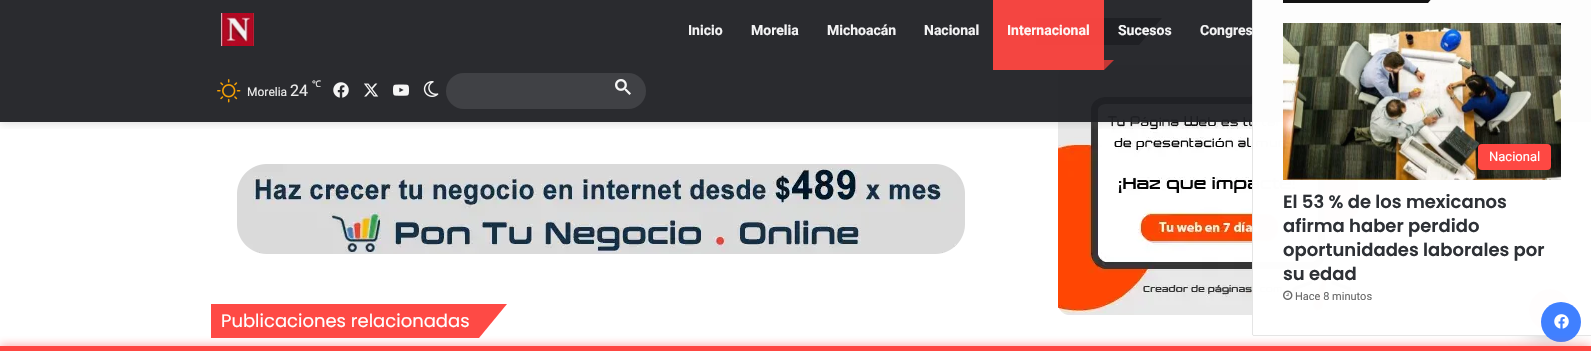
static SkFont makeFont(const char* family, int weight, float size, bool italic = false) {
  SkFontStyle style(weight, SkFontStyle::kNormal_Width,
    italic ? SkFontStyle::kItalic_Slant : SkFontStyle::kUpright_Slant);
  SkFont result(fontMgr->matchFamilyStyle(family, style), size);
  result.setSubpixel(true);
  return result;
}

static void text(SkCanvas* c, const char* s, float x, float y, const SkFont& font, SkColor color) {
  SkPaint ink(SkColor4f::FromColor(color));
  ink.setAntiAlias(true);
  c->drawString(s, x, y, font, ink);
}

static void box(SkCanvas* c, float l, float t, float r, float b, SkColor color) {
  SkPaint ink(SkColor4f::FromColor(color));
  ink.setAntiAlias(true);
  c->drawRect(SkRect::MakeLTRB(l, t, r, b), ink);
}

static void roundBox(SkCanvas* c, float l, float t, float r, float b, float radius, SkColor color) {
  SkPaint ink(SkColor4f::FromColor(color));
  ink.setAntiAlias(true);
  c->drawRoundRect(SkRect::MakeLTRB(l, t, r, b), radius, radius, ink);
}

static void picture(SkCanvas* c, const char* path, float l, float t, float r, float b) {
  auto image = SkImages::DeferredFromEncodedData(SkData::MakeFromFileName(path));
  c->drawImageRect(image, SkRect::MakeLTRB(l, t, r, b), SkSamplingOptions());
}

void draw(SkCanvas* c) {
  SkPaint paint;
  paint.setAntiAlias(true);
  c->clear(0xffffffff);
  box(c, 1036, 18, 1091, 45, 0xff161616);
  paint.setColor(0xff161616);
  c->drawPath(SkPathBuilder().moveTo(1091, 18).lineTo(1162, 18).lineTo(1139, 45).lineTo(1069, 45).close().detach(), paint);
  picture(c, "img_08.png", 1058, 65, 1358, 315);
  c->save();
  c->clipRect(SkRect::MakeLTRB(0, 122, 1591, 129));
  paint.setColor(0x33636363);
  paint.setMaskFilter(SkMaskFilter::MakeBlur(kNormal_SkBlurStyle, 4));
  c->drawRect(SkRect::MakeLTRB(0, 2, 1591, 124), paint);
  paint.setMaskFilter(nullptr);
  c->restore();
  box(c, 0, 0, 1591, 122, 0xf21f2024);
  picture(c, "img_01.png", 221, 13, 254, 46);
  SkFont face1 = makeFont("Roboto", 700, 14);
  text(c, "Inicio", 688, 35, face1, 0xfff4f4f5);
  text(c, "Morelia", 751, 35, face1, 0xfff4f4f5);
  text(c, "Michoacán", 827, 35, face1, 0xfff4f4f5);
  text(c, "Nacional", 924, 35, face1, 0xfff4f4f5);
  box(c, 993, 60, 1104, 70, 0xfff34540);
  box(c, 993, 0, 1104, 60, 0xf2fe4641);
  text(c, "Internacional", 1007, 35, face1, 0xfffef6f5);
  paint.setColor(0xffc33734);
  c->drawPath(SkPathBuilder().moveTo(1104, 60).lineTo(1114, 60).lineTo(1104, 70).close().detach(), paint);
  text(c, "Sucesos", 1118, 35, face1, 0xfff4f4f5);
  text(c, "Congres", 1200, 35, face1, 0xfff4f4f5);
  picture(c, "img_02.png", 217, 79, 241, 103);
  SkFont face2 = makeFont("Roboto", 400, 12);
  text(c, "Morelia", 247, 96, face2, 0xffececec);
  SkFont face3 = makeFont("Roboto", 400, 16);
  text(c, "24", 290, 96, face3, 0xffececec);
  SkFont face4 = makeFont("Noto Sans", 400, 9);
  text(c, "℃", 312, 87, face4, 0xffececec);
  picture(c, "img_03.png", 333, 82, 349, 98);
  picture(c, "img_04.png", 364, 83, 379, 97);
  picture(c, "img_05.png", 393, 84, 409, 96);
  picture(c, "img_06.png", 423, 81, 439, 97);
  roundBox(c, 446, 73, 646, 109, 18, 0x1affffff);
  picture(c, "img_07.png", 615, 79, 631, 95);
  paint.setColor(0x4d000000);
  paint.setMaskFilter(SkMaskFilter::MakeBlur(kNormal_SkBlurStyle, 12.5f));
  c->drawRoundRect(SkRect::MakeLTRB(1529, 294, 1571, 336), 21, 21, paint);
  paint.setMaskFilter(nullptr);
  paint.setColor(0xfffe4641);
  c->drawCircle(1550, 310, 21, paint);
  picture(c, "img_12.png", 1544, 304, 1552, 312);
  paint.setColor(0xfcffffff);
  c->drawPath(SkPathBuilder().moveTo(1254, -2).lineTo(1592, -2).lineTo(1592, 336).lineTo(1254, 336).cubicTo(1253, 336, 1252, 335, 1252, 334).lineTo(1252, 0).cubicTo(1252, -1, 1253, -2, 1254, -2).close().detach(), paint);
  paint.setStyle(SkPaint::kStroke_Style);
  paint.setStrokeWidth(1);
  paint.setColor(0x1a000000);
  c->drawPath(SkPathBuilder().moveTo(1254, -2.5f).lineTo(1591.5f, -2.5f).lineTo(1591.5f, 335.5f).lineTo(1254, 335.5f).cubicTo(1253, 335.5f, 1252.5f, 335, 1252.5f, 334).lineTo(1252.5f, -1).cubicTo(1252.5f, -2, 1253, -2.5f, 1254, -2.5f).close().detach(), paint);
  box(c, 1283, 0, 1331, 3, 0xff121212);
  paint.setStyle(SkPaint::kFill_Style);
  paint.setColor(0xff121212);
  c->drawPath(SkPathBuilder().moveTo(1351, -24).lineTo(1451, -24).lineTo(1428, 3).lineTo(1328, 3).close().detach(), paint);
  picture(c, "img_09.png", 1283, 23, 1561, 180);
  roundBox(c, 1478, 144, 1551, 170, 4, 0xfffe4843);
  SkFont face5 = makeFont("Roboto", 400, 13);
  text(c, "Nacional", 1489, 161, face5, 0xffffffff);
  SkFont face6 = makeFont("Poppins", 600, 18);
  text(c, "El 53 % de los mexicanos", 1283, 208, face6, 0xff2e3136);
  text(c, "afirma haber perdido", 1283, 232, face6, 0xff2e3136);
  text(c, "oportunidades laborales por", 1283, 256, face6, 0xff2e3136);
  text(c, "su edad", 1283, 280, face6, 0xff2e3136);
  picture(c, "img_10.png", 1283, 290, 1293, 300);
  SkFont face7 = makeFont("Roboto", 400, 11);
  text(c, "Hace 8 minutos", 1295, 300, face7, 0xff686868);
  picture(c, "img_11.png", 237, 164, 965, 254);
  box(c, 211, 304, 319, 338, 0xfffe4a45);
  paint.setColor(0xfffe4a45);
  c->drawPath(SkPathBuilder().moveTo(319, 304).lineTo(507, 304).lineTo(479, 338).lineTo(291, 338).close().detach(), paint);
  SkFont face8 = makeFont("Poppins", 400, 18);
  text(c, "Publicaciones relacionadas", 221, 327, face8, 0xffffffff);
  paint.setColor(0xff4080ff);
  c->drawCircle(1561, 322, 20, paint);
  picture(c, "img_13.png", 1554, 314, 1569, 329);
  paint.setColor(0xb3fe4641);
  paint.setMaskFilter(SkMaskFilter::MakeBlur(kNormal_SkBlurStyle, 5));
  c->drawRect(SkRect::MakeLTRB(0, 346, 1591, 351), paint);
  paint.setMaskFilter(nullptr);
  box(c, 0, 346, 1591, 351, 0xfffe4641);
}
